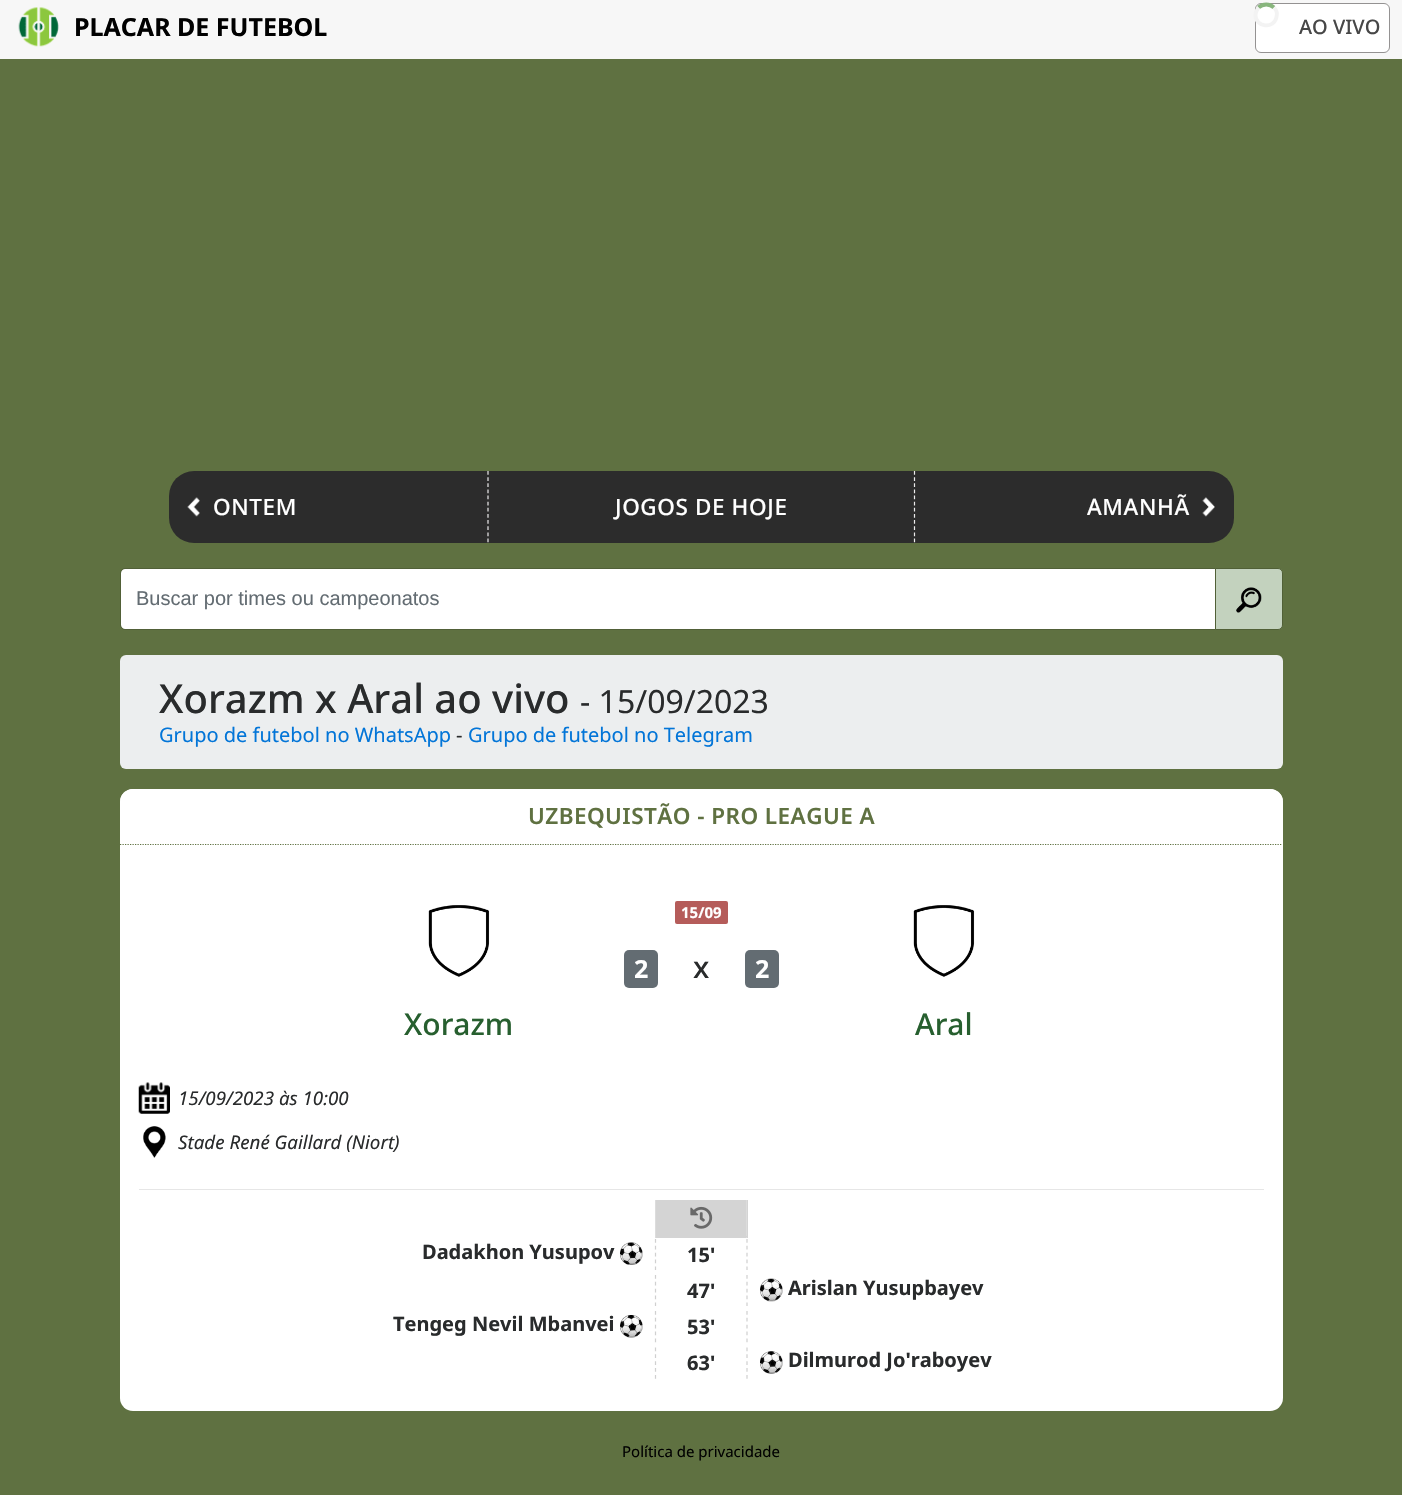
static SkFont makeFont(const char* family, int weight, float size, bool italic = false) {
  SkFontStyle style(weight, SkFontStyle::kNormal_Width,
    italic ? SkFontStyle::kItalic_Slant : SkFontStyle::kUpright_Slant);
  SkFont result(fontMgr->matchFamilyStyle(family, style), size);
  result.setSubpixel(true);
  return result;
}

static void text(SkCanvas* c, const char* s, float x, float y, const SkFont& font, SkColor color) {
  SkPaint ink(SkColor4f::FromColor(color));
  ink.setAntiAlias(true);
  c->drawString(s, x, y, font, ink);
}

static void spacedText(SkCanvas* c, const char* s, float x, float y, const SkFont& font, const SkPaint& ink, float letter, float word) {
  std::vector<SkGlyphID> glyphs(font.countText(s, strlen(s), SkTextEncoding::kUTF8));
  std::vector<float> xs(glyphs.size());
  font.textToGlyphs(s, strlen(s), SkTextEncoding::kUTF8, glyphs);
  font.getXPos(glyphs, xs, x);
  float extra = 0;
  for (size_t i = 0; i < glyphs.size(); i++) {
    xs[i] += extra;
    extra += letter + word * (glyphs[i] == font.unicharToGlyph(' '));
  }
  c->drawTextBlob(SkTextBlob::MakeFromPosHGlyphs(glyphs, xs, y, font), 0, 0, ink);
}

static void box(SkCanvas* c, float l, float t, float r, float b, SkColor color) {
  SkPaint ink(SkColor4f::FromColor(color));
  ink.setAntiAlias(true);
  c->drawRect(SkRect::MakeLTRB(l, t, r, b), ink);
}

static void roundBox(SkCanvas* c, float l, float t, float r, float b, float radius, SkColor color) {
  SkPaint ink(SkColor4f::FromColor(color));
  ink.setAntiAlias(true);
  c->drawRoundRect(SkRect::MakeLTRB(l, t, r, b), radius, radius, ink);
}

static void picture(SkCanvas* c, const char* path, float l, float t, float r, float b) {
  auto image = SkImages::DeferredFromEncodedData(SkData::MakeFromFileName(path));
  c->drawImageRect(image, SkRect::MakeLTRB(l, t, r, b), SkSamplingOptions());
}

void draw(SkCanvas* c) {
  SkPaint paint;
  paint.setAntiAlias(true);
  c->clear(0xff5f7141);
  box(c, 0, 0, 1402, 59, 0xfff7f7f7);
  picture(c, "img_01.png", 18, 7, 59, 47);
  SkFont face1 = makeFont("Noto Sans", 700, 25);
  text(c, "PLACAR DE FUTEBOL", 74, 36, face1, 0xff000000);
  paint.setColor(0xffffffff);
  c->drawRoundRect(SkRect::MakeLTRB(1255.5f, 3.5f, 1389.5f, 52.5f), 5.5f, 5.5f, paint);
  paint.setStyle(SkPaint::kStroke_Style);
  paint.setStrokeWidth(1);
  paint.setColor(0xff949292);
  c->drawRoundRect(SkRect::MakeLTRB(1255.5f, 3.5f, 1389.5f, 52.5f), 5.5f, 5.5f, paint);
  paint.setStrokeWidth(3.8f);
  paint.setColor(0xff88b57d);
  c->drawPath(SkPathBuilder().moveTo(1258.5f, 7.5f).cubicTo(1263, 3.5f, 1269.5f, 3.5f, 1274, 7.5f).detach(), paint);
  paint.setColor(0xfff3f3f3);
  c->drawPath(SkPathBuilder().moveTo(1274, 7.5f).cubicTo(1276.5f, 10, 1277.5f, 13.5f, 1276.5f, 17).cubicTo(1274, 29.5f, 1255.5f, 27.5f, 1255.5f, 15).cubicTo(1255.5f, 12, 1257, 9.5f, 1258.5f, 7.5f).detach(), paint);
  SkFont face2 = makeFont("Noto Sans", 500, 20);
  text(c, "AO VIVO", 1299, 34, face2, 0xff474747);
  roundBox(c, 169, 471, 1234, 543, 25, 0xff2c2c2c);
  paint.setStrokeWidth(1.2f);
  paint.setColor(0xffecebec);
  paint.setPathEffect(SkDashPathEffect::Make({{3.75f, 2.39f}}, 0));
  c->drawPath(SkPathBuilder().moveTo(488, 471).lineTo(488, 542.5f).detach(), paint);
  paint.setPathEffect(nullptr);
  picture(c, "img_02.png", 187, 497, 200, 517);
  SkFont face3 = makeFont("Noto Sans", 500, 22.5f);
  paint.setStyle(SkPaint::kFill_Style);
  paint.setColor(0xffffffff);
  spacedText(c, "ONTEM", 213, 515, face3, paint, 0.6f, 0);
  spacedText(c, "JOGOS DE HOJE", 615, 515, face3, paint, 0.6f, 0);
  paint.setStyle(SkPaint::kStroke_Style);
  paint.setColor(0xffecebec);
  paint.setPathEffect(SkDashPathEffect::Make({{3.75f, 2.39f}}, 0));
  c->drawPath(SkPathBuilder().moveTo(914.5f, 471).lineTo(914.5f, 542.5f).detach(), paint);
  paint.setPathEffect(nullptr);
  paint.setStyle(SkPaint::kFill_Style);
  paint.setColor(0xffffffff);
  spacedText(c, "AMANHÃ", 1087, 515, face3, paint, 0.6f, 0);
  picture(c, "img_03.png", 1202, 497, 1215, 517);
  c->drawPath(SkPathBuilder().moveTo(125, 569).lineTo(1215, 569).lineTo(1215, 629).lineTo(125, 629).cubicTo(123, 629, 121, 627, 121, 625).lineTo(121, 573).cubicTo(121, 571, 123, 569, 125, 569).close().detach(), paint);
  paint.setStyle(SkPaint::kStroke_Style);
  paint.setStrokeWidth(1);
  paint.setColor(0x26000000);
  c->drawPath(SkPathBuilder().moveTo(125, 568.5f).lineTo(1215.5f, 568.5f).lineTo(1215.5f, 629.5f).lineTo(125, 629.5f).cubicTo(122.5f, 629.5f, 120.5f, 627.5f, 120.5f, 625).lineTo(120.5f, 573).cubicTo(120.5f, 570.5f, 122.5f, 568.5f, 125, 568.5f).close().detach(), paint);
  SkFont face4 = makeFont("Liberation Sans", 400, 20);
  text(c, "Buscar por times ou campeonatos", 136, 605, face4, 0xff636c72);
  paint.setStyle(SkPaint::kFill_Style);
  paint.setColor(0xffc3d2be);
  c->drawPath(SkPathBuilder().moveTo(1215.5f, 568.5f).lineTo(1278, 568.5f).cubicTo(1280.5f, 568.5f, 1282.5f, 570.5f, 1282.5f, 573).lineTo(1282.5f, 625).cubicTo(1282.5f, 627.5f, 1280.5f, 629.5f, 1278, 629.5f).lineTo(1215.5f, 629.5f).close().detach(), paint);
  paint.setStyle(SkPaint::kStroke_Style);
  paint.setColor(0xff516037);
  c->drawPath(SkPathBuilder().moveTo(1215.5f, 568.5f).lineTo(1278, 568.5f).cubicTo(1280.5f, 568.5f, 1282.5f, 570.5f, 1282.5f, 573).lineTo(1282.5f, 625).cubicTo(1282.5f, 627.5f, 1280.5f, 629.5f, 1278, 629.5f).lineTo(1215.5f, 629.5f).close().detach(), paint);
  picture(c, "img_04.png", 1236, 587, 1262, 613);
  roundBox(c, 120, 655, 1283, 769, 6, 0xffeceeef);
  SkFont face5 = makeFont("Noto Sans", 500, 40);
  text(c, "Xorazm x Aral ao vivo", 159, 713, face5, 0xff292b2c);
  SkFont face6 = makeFont("Noto Sans", 400, 32);
  text(c, "- 15/09/2023", 580, 713, face6, 0xff292b2c);
  SkFont face7 = makeFont("Noto Sans", 400, 20);
  text(c, "Grupo de futebol no WhatsApp", 159, 742, face7, 0xff0275d8);
  text(c, "-", 456, 742, face7, 0xff292b2c);
  text(c, "Grupo de futebol no Telegram", 468, 742, face7, 0xff0275d8);
  roundBox(c, 120, 789, 1283, 1411, 13, 0xffffffff);
  roundBox(c, 120, 789, 1283, 1051, 13, 0xffffffff);
  paint.setStrokeWidth(1.2f);
  paint.setColor(0xff5f7141);
  paint.setPathEffect(SkDashPathEffect::Make({{1.25f, 1.25f}}, 0));
  c->drawPath(SkPathBuilder().moveTo(120, 844.5f).lineTo(1282.5f, 844.5f).detach(), paint);
  paint.setPathEffect(nullptr);
  SkFont face8 = makeFont("Noto Sans", 600, 22.5f);
  paint.setStyle(SkPaint::kFill_Style);
  spacedText(c, "UZBEQUISTÃO - PRO LEAGUE A", 528, 824, face8, paint, 0.45f, 0);
  picture(c, "img_05.png", 428, 905, 490, 977);
  roundBox(c, 675, 901, 728, 924, 2, 0xffb55c5a);
  SkFont face9 = makeFont("Noto Sans", 700, 15);
  text(c, "15/09", 681, 918, face9, 0xffffffff);
  roundBox(c, 624, 950, 658, 988, 5, 0xff636c72);
  text(c, "2", 634, 978, face1, 0xffffffff);
  SkFont face10 = makeFont("Noto Sans", 500, 30);
  text(c, "x", 693, 978, face10, 0xff292b2c);
  roundBox(c, 745, 950, 779, 988, 5, 0xff636c72);
  text(c, "2", 755, 978, face1, 0xffffffff);
  picture(c, "img_05.png", 913, 905, 975, 977);
  text(c, "Xorazm", 404, 1035, face10, 0xff275f2f);
  text(c, "Aral", 915, 1035, face10, 0xff275f2f);
  picture(c, "img_06.png", 138, 1082, 170, 1114);
  SkFont face11 = makeFont("Noto Sans", 400, 18.75f, true);
  text(c, "15/09/2023 às 10:00", 178, 1105, face11, 0xff292b2c);
  picture(c, "img_07.png", 143, 1126, 166, 1158);
  text(c, "Stade René Gaillard (Niort)", 178, 1149, face11, 0xff292b2c);
  box(c, 139, 1189, 1264, 1190, 0xffe6e6e6);
  box(c, 656, 1200, 748, 1238, 0xffd4d4d4);
  box(c, 746, 1200, 747, 1238, 0xffdcdcdc);
  box(c, 655, 1236, 748, 1237, 0xffd4d4d4);
  box(c, 655, 1200, 656, 1238, 0xffdcdcdc);
  picture(c, "img_08.png", 690, 1206, 713, 1229);
  SkFont face12 = makeFont("Noto Sans", 700, 20);
  text(c, "Dadakhon Yusupov", 422, 1259, face12, 0xff292b2c);
  picture(c, "img_09.png", 620, 1242, 643, 1265);
  paint.setStyle(SkPaint::kStroke_Style);
  paint.setColor(0xffd0d0d0);
  paint.setPathEffect(SkDashPathEffect::Make({{3.75f, 3.12f}}, 0));
  c->drawPath(SkPathBuilder().moveTo(747, 1239).lineTo(747, 1270).detach(), paint);
  paint.setPathEffect(nullptr);
  paint.setPathEffect(SkDashPathEffect::Make({{3.75f, 3.12f}}, 0));
  c->drawPath(SkPathBuilder().moveTo(655.5f, 1239).lineTo(655.5f, 1270).detach(), paint);
  paint.setPathEffect(nullptr);
  text(c, "15'", 687, 1262, face12, 0xff292b2c);
  paint.setPathEffect(SkDashPathEffect::Make({{3.75f, 3.12f}}, 0));
  c->drawPath(SkPathBuilder().moveTo(747, 1275).lineTo(747, 1306).detach(), paint);
  paint.setPathEffect(nullptr);
  paint.setPathEffect(SkDashPathEffect::Make({{3.75f, 3.12f}}, 0));
  c->drawPath(SkPathBuilder().moveTo(655.5f, 1275).lineTo(655.5f, 1306).detach(), paint);
  paint.setPathEffect(nullptr);
  text(c, "47'", 687, 1298, face12, 0xff292b2c);
  picture(c, "img_10.png", 760, 1278, 783, 1302);
  text(c, "Arislan Yusupbayev", 788, 1295, face12, 0xff292b2c);
  text(c, "Tengeg Nevil Mbanvei", 393, 1331, face12, 0xff292b2c);
  picture(c, "img_11.png", 620, 1315, 643, 1338);
  paint.setPathEffect(SkDashPathEffect::Make({{3.75f, 3.12f}}, 0));
  c->drawPath(SkPathBuilder().moveTo(747, 1311).lineTo(747, 1342.5f).detach(), paint);
  paint.setPathEffect(nullptr);
  paint.setPathEffect(SkDashPathEffect::Make({{3.75f, 3.12f}}, 0));
  c->drawPath(SkPathBuilder().moveTo(655.5f, 1311).lineTo(655.5f, 1342.5f).detach(), paint);
  paint.setPathEffect(nullptr);
  text(c, "53'", 687, 1334, face12, 0xff292b2c);
  paint.setPathEffect(SkDashPathEffect::Make({{3.75f, 3.12f}}, 0));
  c->drawPath(SkPathBuilder().moveTo(747, 1347.5f).lineTo(747, 1379).detach(), paint);
  paint.setPathEffect(nullptr);
  paint.setPathEffect(SkDashPathEffect::Make({{3.75f, 3.12f}}, 0));
  c->drawPath(SkPathBuilder().moveTo(655.5f, 1347.5f).lineTo(655.5f, 1379).detach(), paint);
  paint.setPathEffect(nullptr);
  text(c, "63'", 687, 1370, face12, 0xff292b2c);
  picture(c, "img_12.png", 760, 1351, 783, 1374);
  text(c, "Dilmurod Jo'raboyev", 788, 1367, face12, 0xff292b2c);
  SkFont face13 = makeFont("Noto Sans", 400, 15);
  text(c, "Política de privacidade", 622, 1457, face13, 0xff000000);
}
